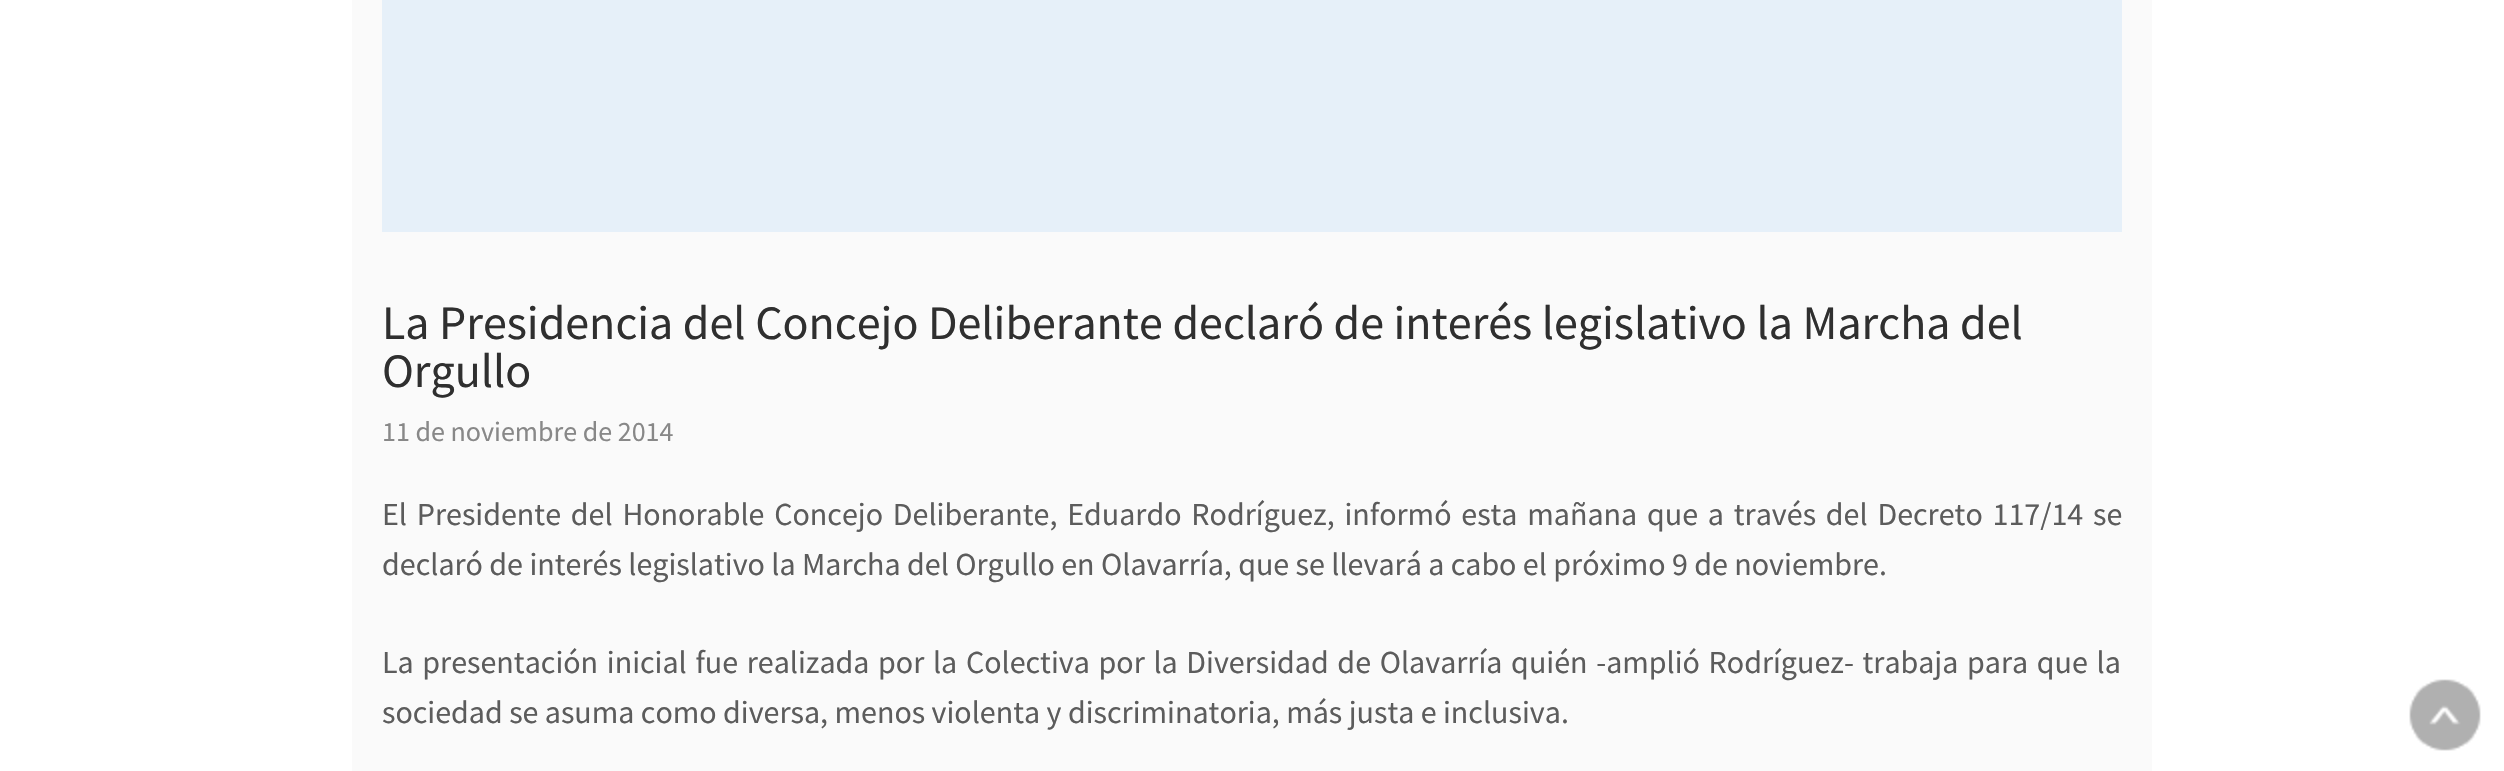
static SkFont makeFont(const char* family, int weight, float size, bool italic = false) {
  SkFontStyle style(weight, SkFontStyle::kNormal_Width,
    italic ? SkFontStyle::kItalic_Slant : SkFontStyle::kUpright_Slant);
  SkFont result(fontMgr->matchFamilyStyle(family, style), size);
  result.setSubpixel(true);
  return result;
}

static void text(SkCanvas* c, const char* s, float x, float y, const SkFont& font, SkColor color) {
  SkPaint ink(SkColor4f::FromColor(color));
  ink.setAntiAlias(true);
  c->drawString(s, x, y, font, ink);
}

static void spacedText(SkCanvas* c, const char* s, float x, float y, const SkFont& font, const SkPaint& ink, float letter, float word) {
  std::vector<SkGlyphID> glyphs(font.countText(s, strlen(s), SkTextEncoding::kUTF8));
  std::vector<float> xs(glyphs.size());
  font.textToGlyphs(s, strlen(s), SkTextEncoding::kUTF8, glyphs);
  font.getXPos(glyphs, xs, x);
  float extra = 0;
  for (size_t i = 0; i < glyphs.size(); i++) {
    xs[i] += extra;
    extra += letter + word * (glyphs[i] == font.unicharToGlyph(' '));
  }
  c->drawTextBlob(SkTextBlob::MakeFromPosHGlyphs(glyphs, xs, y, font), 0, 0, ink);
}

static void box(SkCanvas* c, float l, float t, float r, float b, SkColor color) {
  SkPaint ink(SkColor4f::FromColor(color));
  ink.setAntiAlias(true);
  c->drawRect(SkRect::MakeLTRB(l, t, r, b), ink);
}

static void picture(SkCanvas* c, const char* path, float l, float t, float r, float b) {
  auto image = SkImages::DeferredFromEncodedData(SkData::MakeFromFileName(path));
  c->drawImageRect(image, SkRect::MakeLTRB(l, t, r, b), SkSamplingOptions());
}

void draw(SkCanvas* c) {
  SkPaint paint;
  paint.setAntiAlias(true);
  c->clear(0xffffffff);
  box(c, 352, 0, 2152, 771, 0xfffafafa);
  box(c, 382, 0, 2122, 232, 0xffe6f0f9);
  SkFont face1 = makeFont("Source Sans Pro", 400, 48);
  text(c, "La Presidencia del Concejo Deliberante declaró de interés legislativo la Marcha del", 382, 339, face1, 0xff2f2f2f);
  text(c, "Orgullo", 382, 387, face1, 0xff2f2f2f);
  SkFont face2 = makeFont("Source Sans Pro", 400, 28);
  text(c, "11 de noviembre de 2014", 382, 441, face2, 0xff888888);
  SkFont face3 = makeFont("Source Sans Pro", 400, 32);
  paint.setColor(0xff5c5c5c);
  spacedText(c, "El Presidente del Honorable Concejo Deliberante, Eduardo Rodríguez, informó esta mañana que a través del Decreto 117/14 se", 382, 525, face3, paint, 0, 3.4f);
  text(c, "declaró de interés legislativo la Marcha del Orgullo en Olavarría, que se llevará a cabo el próximo 9 de noviembre.", 382, 575, face3, 0xff5c5c5c);
  spacedText(c, "La presentación inicial fue realizada por la Colectiva por la Diversidad de Olavarría quién -amplió Rodríguez- trabaja para que la", 382, 673, face3, paint, 0, 2.25f);
  text(c, "sociedad se asuma como diversa, menos violenta y discriminatoria, más justa e inclusiva.", 382, 723, face3, 0xff5c5c5c);
  picture(c, "img_01.png", 2409, 679, 2481, 751);
}
